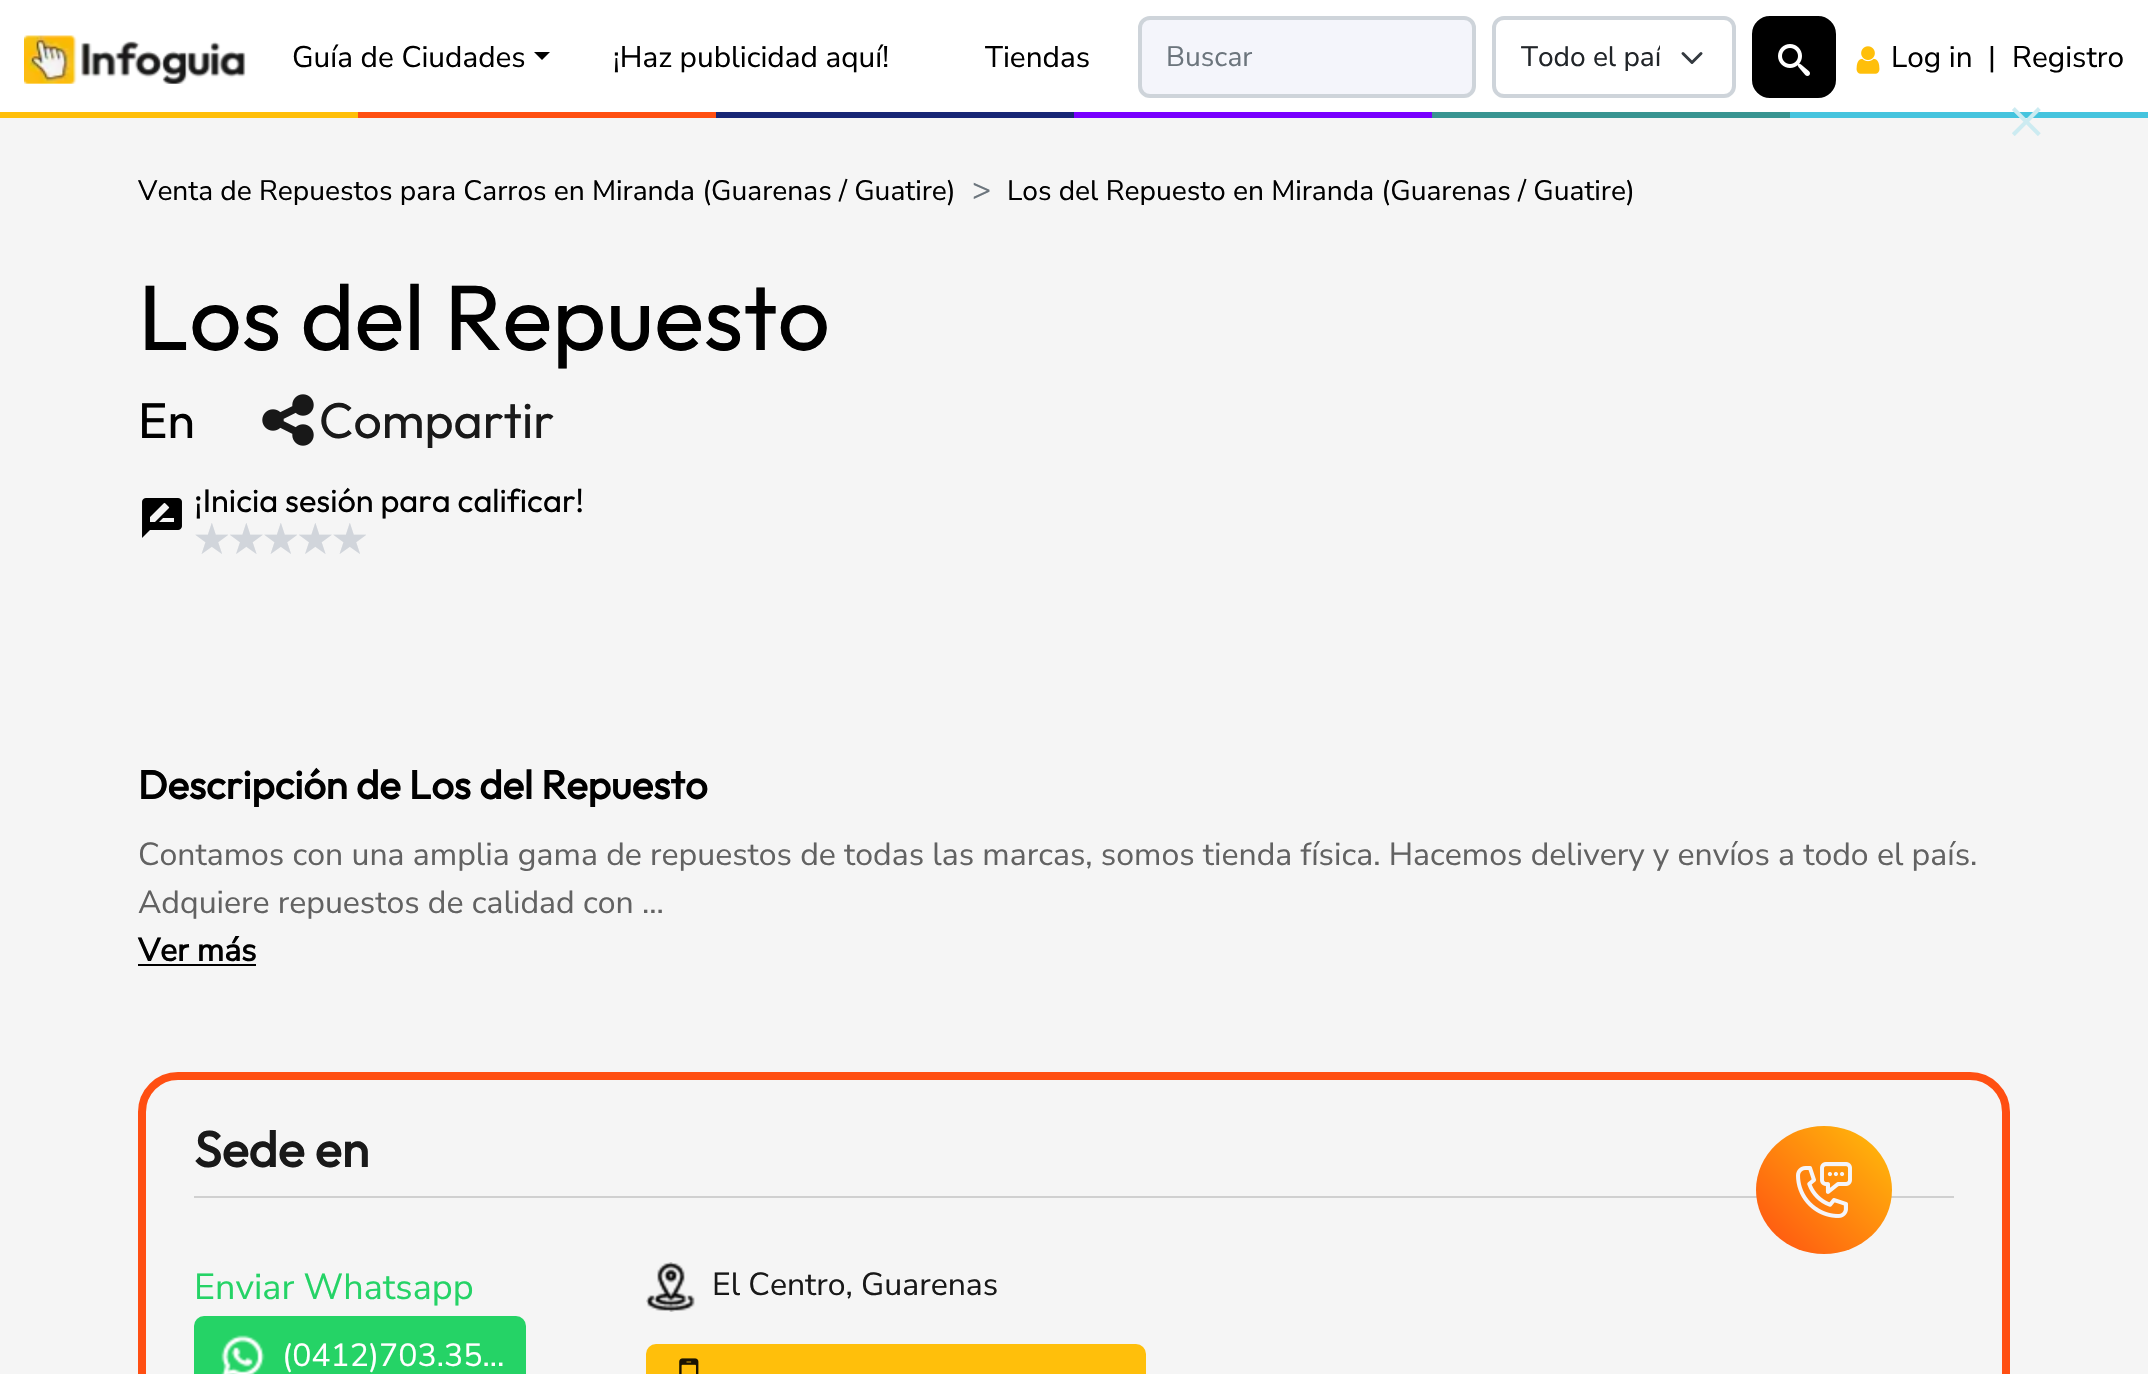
static SkFont makeFont(const char* family, int weight, float size, bool italic = false) {
  SkFontStyle style(weight, SkFontStyle::kNormal_Width,
    italic ? SkFontStyle::kItalic_Slant : SkFontStyle::kUpright_Slant);
  SkFont result(fontMgr->matchFamilyStyle(family, style), size);
  result.setSubpixel(true);
  return result;
}

static void text(SkCanvas* c, const char* s, float x, float y, const SkFont& font, SkColor color) {
  SkPaint ink(SkColor4f::FromColor(color));
  ink.setAntiAlias(true);
  c->drawString(s, x, y, font, ink);
}

static void box(SkCanvas* c, float l, float t, float r, float b, SkColor color) {
  SkPaint ink(SkColor4f::FromColor(color));
  ink.setAntiAlias(true);
  c->drawRect(SkRect::MakeLTRB(l, t, r, b), ink);
}

static void roundBox(SkCanvas* c, float l, float t, float r, float b, float radius, SkColor color) {
  SkPaint ink(SkColor4f::FromColor(color));
  ink.setAntiAlias(true);
  c->drawRoundRect(SkRect::MakeLTRB(l, t, r, b), radius, radius, ink);
}

static void picture(SkCanvas* c, const char* path, float l, float t, float r, float b) {
  auto image = SkImages::DeferredFromEncodedData(SkData::MakeFromFileName(path));
  c->drawImageRect(image, SkRect::MakeLTRB(l, t, r, b), SkSamplingOptions());
}

void draw(SkCanvas* c) {
  SkPaint paint;
  paint.setAntiAlias(true);
  c->clear(0xfff5f5f5);
  box(c, 0, 0, 2148, 112, 0xffffffff);
  picture(c, "img_01.png", 24, 35, 246, 84);
  SkFont face1 = makeFont("Nunito Sans", 400, 29.75f);
  text(c, "Guía de Ciudades", 292, 67, face1, 0xff000000);
  paint.setColor(0xff000000);
  c->drawPath(SkPathBuilder().moveTo(534, 52).lineTo(550, 52).lineTo(542, 60).close().detach(), paint);
  text(c, "¡Haz publicidad aquí!", 613, 67, face1, 0xff000000);
  text(c, "Tiendas", 985, 67, face1, 0xff000000);
  paint.setColor(0xfff4f5fb);
  c->drawRoundRect(SkRect::MakeLTRB(1140, 18, 1474, 96), 10, 10, paint);
  paint.setStyle(SkPaint::kStroke_Style);
  paint.setStrokeWidth(4);
  paint.setColor(0xffced4da);
  c->drawRoundRect(SkRect::MakeLTRB(1140, 18, 1474, 96), 10, 10, paint);
  SkFont face2 = makeFont("Nunito Sans", 400, 28.15f);
  text(c, "Buscar", 1166, 66, face2, 0xff6c757d);
  paint.setStrokeWidth(3);
  paint.setStrokeCap(SkPaint::kRound_Cap);
  paint.setStrokeJoin(SkPaint::kRound_Join);
  paint.setColor(0xff343a40);
  c->drawPath(SkPathBuilder().moveTo(1683, 53.5f).lineTo(1692, 62.5f).lineTo(1701, 53.5f).detach(), paint);
  paint.setStrokeWidth(4);
  paint.setStrokeCap(SkPaint::kButt_Cap);
  paint.setStrokeJoin(SkPaint::kMiter_Join);
  paint.setColor(0xffced4da);
  c->drawRoundRect(SkRect::MakeLTRB(1494, 18, 1734, 96), 10, 10, paint);
  c->save();
  c->clipRect(SkRect::MakeLTRB(1520, 36, 1660, 78));
  text(c, "Todo el paí", 1521, 66, face2, 0xff212529);
  c->restore();
  paint.setStyle(SkPaint::kFill_Style);
  paint.setColor(0xff000000);
  c->drawRoundRect(SkRect::MakeLTRB(1753, 17, 1835, 97), 17, 17, paint);
  paint.setStyle(SkPaint::kStroke_Style);
  paint.setStrokeWidth(2);
  c->drawRoundRect(SkRect::MakeLTRB(1753, 17, 1835, 97), 17, 17, paint);
  picture(c, "img_02.png", 1778, 44, 1810, 76);
  picture(c, "img_03.png", 1856, 46, 1880, 74);
  text(c, "Log in", 1891, 67, face1, 0xff000000);
  text(c, "|", 1988, 67, face1, 0xff000000);
  text(c, "Registro", 2012, 67, face1, 0xff000000);
  box(c, 1790, 112, 2148, 118, 0xff45c4de);
  SkFont face3 = makeFont("Nunito Sans", 400, 61);
  text(c, "×", 2008, 139, face3, 0xffccebf1);
  box(c, 0, 112, 358, 118, 0xffffbf0a);
  box(c, 358, 112, 716, 118, 0xffff4f12);
  box(c, 716, 112, 1074, 118, 0xff172675);
  box(c, 1074, 112, 1432, 118, 0xff7800ff);
  box(c, 1432, 112, 1790, 118, 0xff389491);
  text(c, "Venta de Repuestos para Carros en Miranda (Guarenas / Guatire)", 138, 200, face2, 0xff000000);
  SkFont face4 = makeFont("Nunito Sans", 400, 32);
  text(c, ">", 972, 200, face4, 0xff6c757d);
  text(c, "Los del Repuesto en Miranda (Guarenas / Guatire)", 1007, 200, face2, 0xff000000);
  SkFont face5 = makeFont("Outfit", 100, 92.75f);
  text(c, "Los del Repuesto", 138, 350, face5, 0xff000000);
  SkFont face6 = makeFont("Outfit", 100, 50);
  text(c, "En", 138, 438, face6, 0xff000000);
  picture(c, "img_04.png", 262, 394, 314, 446);
  text(c, "Compartir", 319, 438, face6, 0xff191919);
  picture(c, "img_05.png", 142, 498, 182, 538);
  SkFont face7 = makeFont("Outfit", 100, 32.5f);
  text(c, "¡Inicia sesión para calificar!", 194, 512, face7, 0xff000000);
  SkFont face8 = makeFont("DejaVu Sans", 700, 38.5f);
  text(c, "★★★★★", 194, 553, face8, 0xffd1d5db);
  SkFont face9 = makeFont("Outfit", 700, 40);
  text(c, "Descripción de Los del Repuesto", 138, 799, face9, 0xff000000);
  text(c, "Contamos con una amplia gama de repuestos de todas las marcas, somos tienda física. Hacemos delivery y envíos a todo el país.", 138, 865, face4, 0xff626262);
  text(c, "Adquiere repuestos de calidad con ...", 138, 913, face4, 0xff626262);
  SkFont face10 = makeFont("Nunito Sans", 700, 32);
  text(c, "Ver más", 138, 961, face10, 0xff000000);
  box(c, 138, 964, 256, 966, 0xff000000);
  paint.setStrokeWidth(8);
  paint.setColor(0xffff4f12);
  c->drawRoundRect(SkRect::MakeLTRB(142, 1076, 2006, 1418), 36, 36, paint);
  box(c, 194, 1196, 1954, 1198, 0xffd0d0d0);
  SkFont face11 = makeFont("Outfit", 700, 50);
  text(c, "Sede en", 194, 1167, face11, 0xff191919);
  SkFont face12 = makeFont("Nunito Sans", 400, 36);
  text(c, "Enviar Whatsapp", 194, 1299, face12, 0xff25d366);
  roundBox(c, 194, 1316, 526, 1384, 10, 0xff25d366);
  picture(c, "img_06.png", 221, 1335, 265, 1374);
  text(c, "(0412)703.35...", 282, 1366, face4, 0xffffffff);
  picture(c, "img_07.png", 646, 1262, 695, 1312);
  text(c, "El Centro, Guarenas", 712, 1295, face4, 0xff191919);
  roundBox(c, 646, 1344, 1146, 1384, 10, 0xffffbf0b);
  picture(c, "img_08.png", 679, 1358, 699, 1374);
  paint.setStyle(SkPaint::kFill_Style);
  {
    const SkColor colors[] = {0xff020024, 0xffff4f12, 0xffffbf0a};
    const float stops[] = {0, 0, 1};
    const SkPoint ends[] = {{1758, 1256}, {1890, 1124}};
    paint.setShader(SkGradientShader::MakeLinear(ends, colors, stops, 3, SkTileMode::kClamp));
    paint.setAlpha(255);
  }
  c->drawOval(SkRect::MakeLTRB(1756, 1126, 1892, 1254), paint);
  picture(c, "img_09.png", 1796, 1162, 1852, 1218);
}
